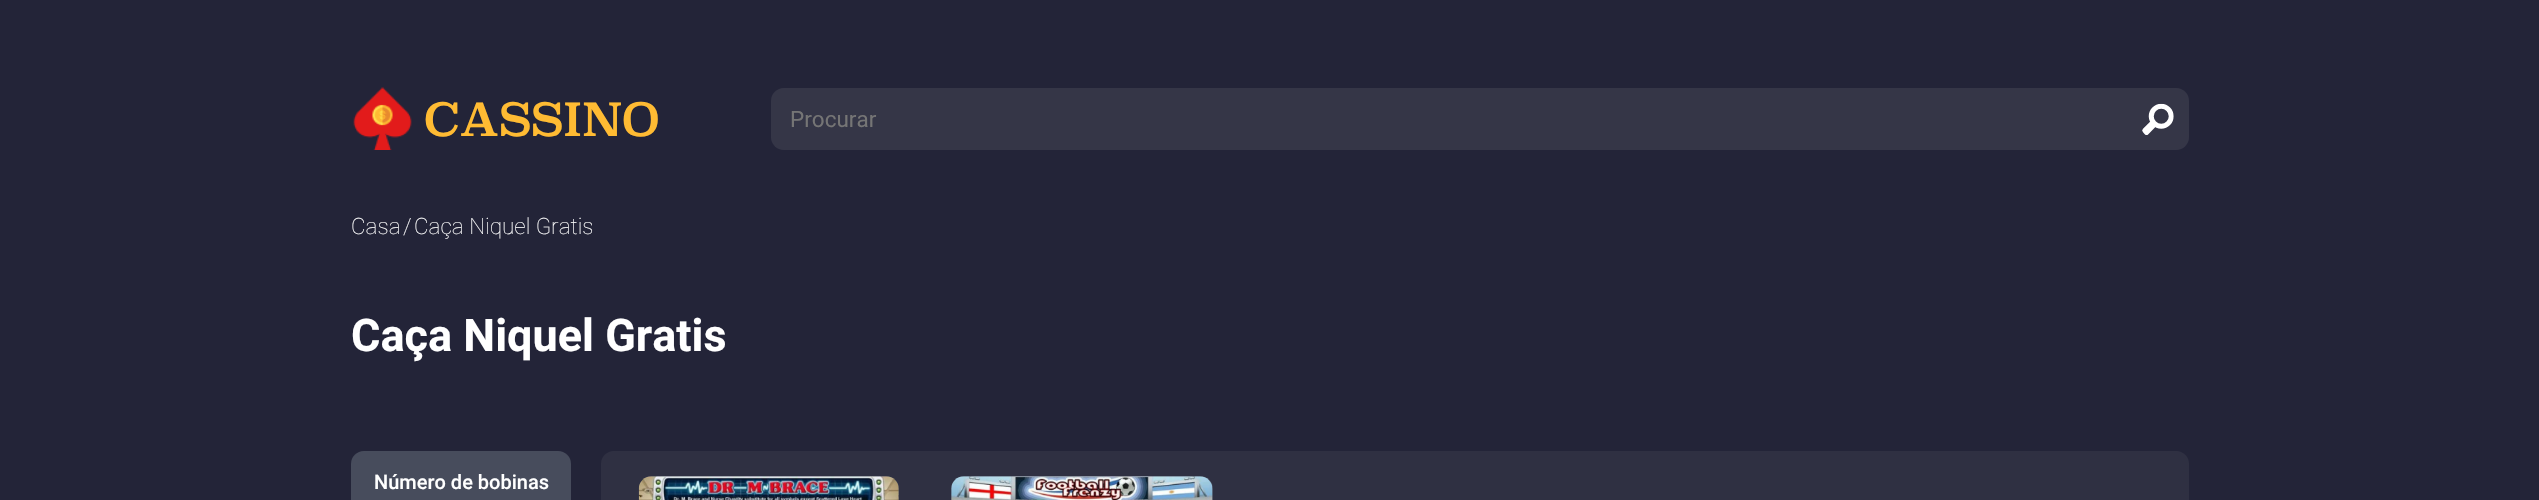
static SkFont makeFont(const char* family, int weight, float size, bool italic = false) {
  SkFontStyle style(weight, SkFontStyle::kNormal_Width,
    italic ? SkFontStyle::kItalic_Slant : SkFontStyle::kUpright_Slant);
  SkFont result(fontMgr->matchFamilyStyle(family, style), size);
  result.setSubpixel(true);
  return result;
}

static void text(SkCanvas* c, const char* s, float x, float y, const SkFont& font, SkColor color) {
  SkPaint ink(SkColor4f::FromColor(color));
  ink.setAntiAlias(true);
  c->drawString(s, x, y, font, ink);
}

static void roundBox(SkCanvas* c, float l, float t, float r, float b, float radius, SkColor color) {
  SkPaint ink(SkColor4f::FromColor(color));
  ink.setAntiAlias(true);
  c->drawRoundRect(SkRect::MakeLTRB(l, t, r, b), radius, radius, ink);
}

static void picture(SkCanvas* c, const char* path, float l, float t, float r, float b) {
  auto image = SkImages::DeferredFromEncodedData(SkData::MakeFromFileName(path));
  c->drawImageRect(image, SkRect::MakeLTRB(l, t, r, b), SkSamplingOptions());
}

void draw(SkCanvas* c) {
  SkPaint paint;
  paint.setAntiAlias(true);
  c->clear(0xff232438);
  picture(c, "img_01.png", 353, 87, 412, 150);
  SkFont face1 = makeFont("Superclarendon", 400, 45);
  text(c, "CASSINO", 424, 136, face1, 0xffffbb33);
  roundBox(c, 771, 88, 2189, 150, 13, 0xff353647);
  SkFont face2 = makeFont("Roboto", 400, 22.5f);
  text(c, "Procurar", 790, 127, face2, 0xff757575);
  picture(c, "img_02.png", 2142, 103, 2174, 135);
  SkFont face3 = makeFont("Roboto", 100, 22.5f);
  text(c, "Casa", 351, 234, face3, 0xffffffff);
  text(c, "/", 403, 234, face3, 0xffffffff);
  text(c, "Caça Niquel Gratis", 414, 234, face3, 0xffffffff);
  SkFont face4 = makeFont("Roboto", 700, 45);
  text(c, "Caça Niquel Gratis", 351, 351, face4, 0xffffffff);
  roundBox(c, 351, 451, 571, 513, 13, 0xff474c5c);
  SkFont face5 = makeFont("Roboto", 500, 20);
  text(c, "Número de bobinas", 374, 489, face5, 0xffffffff);
  roundBox(c, 601, 451, 2189, 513, 13, 0xff2f3042);
  roundBox(c, 639, 476, 899, 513, 13, 0xff474c5c);
  picture(c, "img_03.png", 638, 476, 899, 500);
  roundBox(c, 951, 476, 1213, 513, 13, 0xff474c5c);
  picture(c, "img_04.png", 951, 476, 1213, 500);
}
